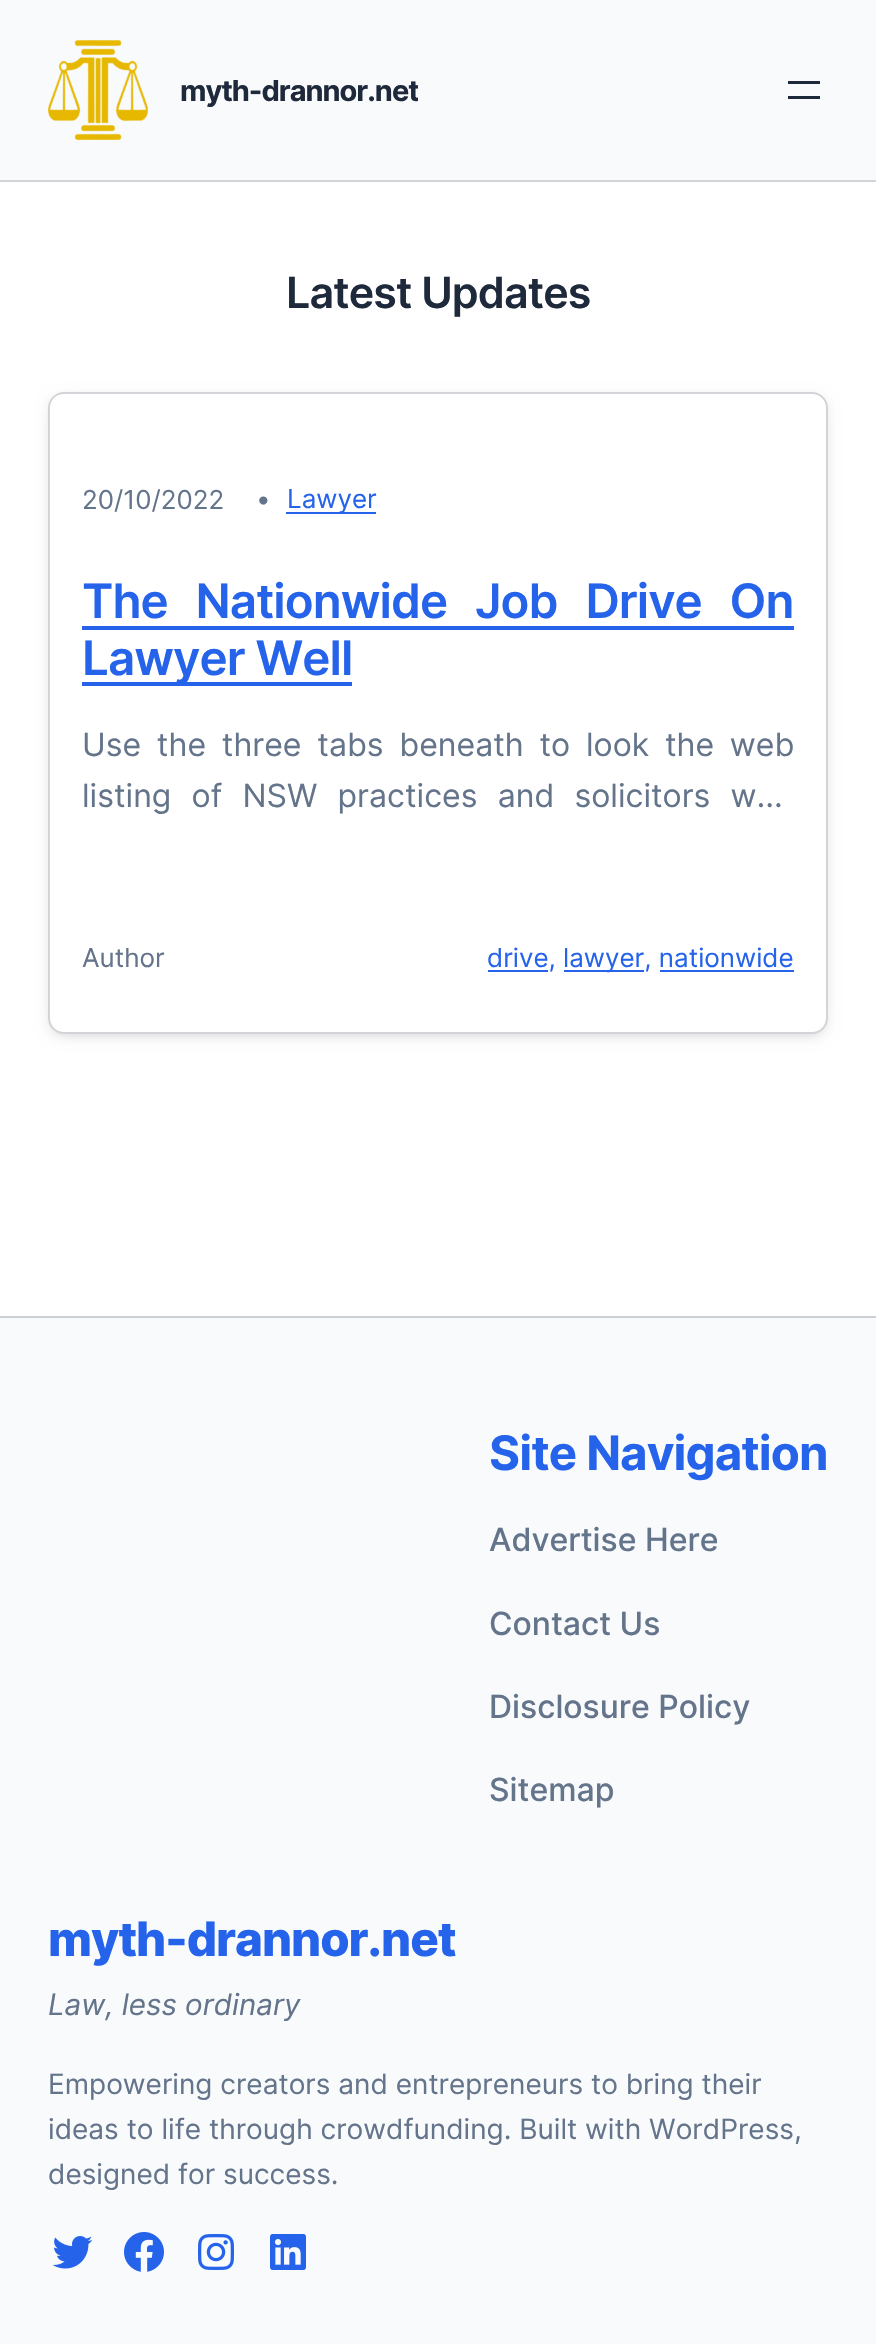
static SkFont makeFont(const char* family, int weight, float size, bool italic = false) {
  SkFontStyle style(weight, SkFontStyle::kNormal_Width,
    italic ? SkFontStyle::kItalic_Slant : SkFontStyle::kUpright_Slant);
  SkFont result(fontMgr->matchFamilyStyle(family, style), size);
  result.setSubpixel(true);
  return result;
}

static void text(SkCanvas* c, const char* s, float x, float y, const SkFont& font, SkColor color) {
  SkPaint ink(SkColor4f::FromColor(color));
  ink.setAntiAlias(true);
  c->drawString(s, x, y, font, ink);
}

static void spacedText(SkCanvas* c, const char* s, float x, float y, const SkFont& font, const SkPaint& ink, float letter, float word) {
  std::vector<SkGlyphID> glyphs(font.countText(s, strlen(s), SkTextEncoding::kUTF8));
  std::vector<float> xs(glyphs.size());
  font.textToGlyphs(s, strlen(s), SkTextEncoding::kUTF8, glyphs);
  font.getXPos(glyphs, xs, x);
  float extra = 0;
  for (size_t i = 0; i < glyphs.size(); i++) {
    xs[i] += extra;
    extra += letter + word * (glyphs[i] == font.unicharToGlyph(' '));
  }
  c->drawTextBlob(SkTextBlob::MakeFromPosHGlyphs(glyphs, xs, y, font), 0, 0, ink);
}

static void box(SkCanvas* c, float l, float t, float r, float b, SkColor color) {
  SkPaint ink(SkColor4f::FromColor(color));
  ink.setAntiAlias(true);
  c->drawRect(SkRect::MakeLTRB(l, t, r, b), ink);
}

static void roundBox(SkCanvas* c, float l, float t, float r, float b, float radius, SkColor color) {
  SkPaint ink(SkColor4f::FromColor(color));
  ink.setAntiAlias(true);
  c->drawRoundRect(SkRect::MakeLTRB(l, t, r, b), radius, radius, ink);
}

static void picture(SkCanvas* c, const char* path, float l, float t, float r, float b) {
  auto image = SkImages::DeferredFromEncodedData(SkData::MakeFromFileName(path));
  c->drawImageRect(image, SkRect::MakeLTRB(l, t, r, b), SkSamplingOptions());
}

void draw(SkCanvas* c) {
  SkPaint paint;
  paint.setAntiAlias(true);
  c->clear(0xffffffff);
  box(c, 0, 180, 876, 182, 0xffd2d4d8);
  box(c, 0, 0, 876, 180, 0xfff8fafc);
  picture(c, "img_01.png", 48, 40, 148, 140);
  c->save();
  c->clipRect(SkRect::MakeLTRB(180, 66, 418, 114));
  SkFont face1 = makeFont("Inter", 700, 29);
  paint.setColor(0xff1e293b);
  spacedText(c, "myth-drannor.net", 180, 101, face1, paint, -1, 0);
  c->restore();
  box(c, 788, 81, 820, 84, 0xff1e293b);
  box(c, 788, 96, 820, 99, 0xff1e293b);
  SkFont face2 = makeFont("Inter", 600, 43);
  spacedText(c, "Latest Updates", 286, 308, face2, paint, -0.9f, 0);
  paint.setColor(0x14000000);
  paint.setMaskFilter(SkMaskFilter::MakeBlur(kNormal_SkBlurStyle, 4));
  c->drawRoundRect(SkRect::MakeLTRB(52, 400, 824, 1034), 12, 12, paint);
  paint.setMaskFilter(nullptr);
  paint.setColor(0x1f000000);
  paint.setMaskFilter(SkMaskFilter::MakeBlur(kNormal_SkBlurStyle, 8));
  c->drawRoundRect(SkRect::MakeLTRB(52, 400, 824, 1034), 12, 12, paint);
  paint.setMaskFilter(nullptr);
  roundBox(c, 48, 392, 828, 1034, 16, 0xffffffff);
  paint.setStyle(SkPaint::kStroke_Style);
  paint.setStrokeWidth(2);
  paint.setColor(0x331e293b);
  c->drawRoundRect(SkRect::MakeLTRB(49, 393, 827, 1033), 15, 15, paint);
  SkFont face3 = makeFont("Inter", 400, 26);
  text(c, "20/10/2022", 82, 509, face3, 0xff64748b);
  text(c, "•", 256, 508, face3, 0xff64748b);
  box(c, 286, 512, 376, 514, 0xff2563eb);
  text(c, "Lawyer", 287, 508, face3, 0xff2563eb);
  SkFont face4 = makeFont("Inter", 600, 47.5f);
  paint.setStyle(SkPaint::kFill_Style);
  paint.setColor(0xff2563eb);
  spacedText(c, "The Nationwide Job Drive On", 82, 618, face4, paint, -0.95f, 17);
  box(c, 82, 626, 794, 630, 0xff2563eb);
  box(c, 82, 682, 352, 686, 0xff2563eb);
  spacedText(c, "Lawyer Well", 82, 675, face4, paint, -0.95f, 0);
  SkFont face5 = makeFont("Inter", 400, 32);
  paint.setColor(0xff64748b);
  spacedText(c, "Use the three tabs beneath to look the web", 82, 756, face5, paint, 0, 6.75f);
  spacedText(c, "listing of NSW practices and solicitors w…", 82, 807, face5, paint, 0, 11.25f);
  text(c, "Author", 82, 967, face3, 0xff64748b);
  box(c, 488, 970, 548, 972, 0xff2563eb);
  text(c, "drive,", 487, 967, face3, 0xff2563eb);
  box(c, 564, 970, 644, 972, 0xff2563eb);
  text(c, "lawyer, nationwide", 563, 967, face3, 0xff2563eb);
  box(c, 660, 970, 794, 972, 0xff2563eb);
  box(c, 0, 1318, 876, 2344, 0xfff8fafc);
  box(c, 0, 1316, 876, 1318, 0xffccd0d5);
  SkFont face6 = makeFont("Inter", 700, 47.5f);
  paint.setColor(0xff2563eb);
  spacedText(c, "Site Navigation", 489, 1470, face6, paint, -0.95f, 0);
  SkFont face7 = makeFont("Inter", 500, 32);
  text(c, "Advertise Here", 489, 1551, face7, 0xff64748b);
  text(c, "Contact Us", 489, 1635, face7, 0xff64748b);
  text(c, "Disclosure Policy", 489, 1718, face7, 0xff64748b);
  text(c, "Sitemap", 489, 1801, face7, 0xff64748b);
  SkFont face8 = makeFont("Inter", 800, 47.5f);
  spacedText(c, "myth-drannor.net", 48, 1956, face8, paint, -1, 0);
  SkFont face9 = makeFont("Inter", 400, 29.5f, true);
  text(c, "Law, less ordinary", 48, 2015, face9, 0xff64748b);
  SkFont face10 = makeFont("Inter", 400, 28);
  text(c, "Empowering creators and entrepreneurs to bring their", 48, 2094, face10, 0xff64748b);
  text(c, "ideas to life through crowdfunding. Built with WordPress,", 48, 2139, face10, 0xff64748b);
  text(c, "designed for success.", 48, 2184, face10, 0xff64748b);
  picture(c, "img_02.png", 52, 2236, 93, 2269);
  picture(c, "img_03.png", 124, 2232, 164, 2272);
  picture(c, "img_04.png", 198, 2234, 234, 2270);
  picture(c, "img_05.png", 270, 2234, 306, 2270);
}
